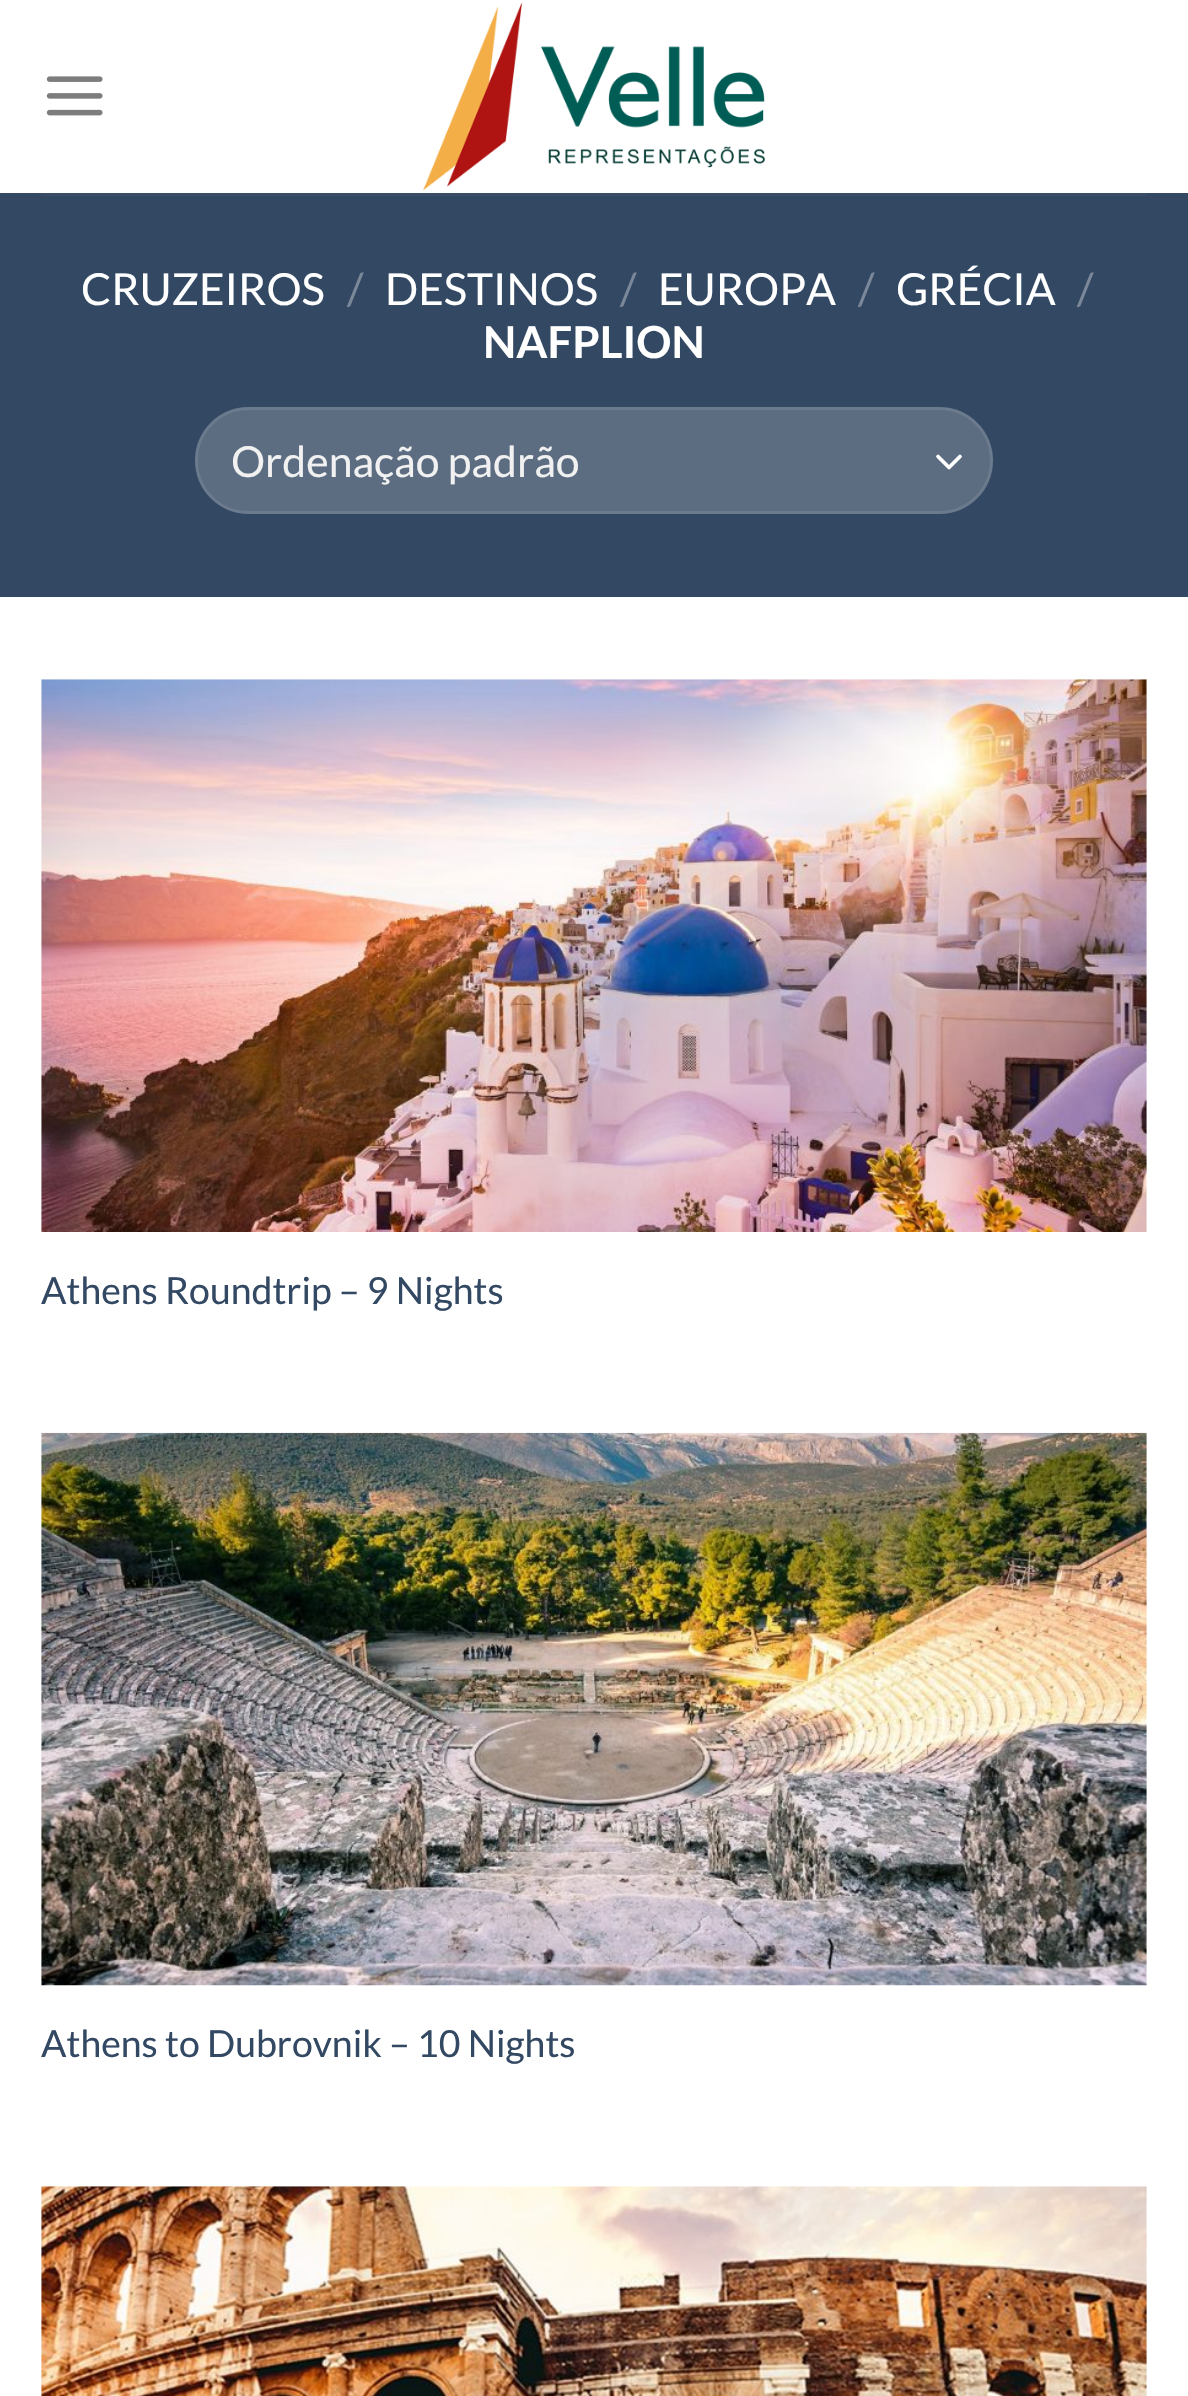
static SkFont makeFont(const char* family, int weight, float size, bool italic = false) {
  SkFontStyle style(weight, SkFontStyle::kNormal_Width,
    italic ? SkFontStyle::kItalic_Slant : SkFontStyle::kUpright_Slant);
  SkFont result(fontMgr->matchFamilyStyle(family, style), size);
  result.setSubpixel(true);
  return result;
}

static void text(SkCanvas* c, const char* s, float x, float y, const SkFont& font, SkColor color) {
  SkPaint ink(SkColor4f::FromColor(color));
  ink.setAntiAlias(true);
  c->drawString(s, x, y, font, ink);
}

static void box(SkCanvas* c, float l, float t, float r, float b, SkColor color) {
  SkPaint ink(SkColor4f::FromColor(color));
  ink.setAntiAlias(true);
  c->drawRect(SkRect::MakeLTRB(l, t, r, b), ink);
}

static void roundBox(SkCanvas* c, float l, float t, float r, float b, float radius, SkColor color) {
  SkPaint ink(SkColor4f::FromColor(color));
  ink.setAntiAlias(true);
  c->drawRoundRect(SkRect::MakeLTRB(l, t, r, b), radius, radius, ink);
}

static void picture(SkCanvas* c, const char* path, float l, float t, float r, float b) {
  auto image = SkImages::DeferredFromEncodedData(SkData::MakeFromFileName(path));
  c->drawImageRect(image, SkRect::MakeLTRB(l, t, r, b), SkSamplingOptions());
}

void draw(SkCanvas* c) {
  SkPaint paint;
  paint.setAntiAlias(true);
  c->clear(0xffffffff);
  picture(c, "img_01.png", 46, 76, 103, 116);
  picture(c, "img_02.png", 423, 2, 765, 191);
  box(c, 0, 193, 1188, 597, 0xff334863);
  box(c, 41, 193, 1147, 196, 0xff3a4d65);
  SkFont face1 = makeFont("Lato", 400, 44);
  text(c, "CRUZEIROS", 81, 305, face1, 0xffffffff);
  text(c, "/", 347, 305, face1, 0xff7a889a);
  text(c, "DESTINOS", 385, 305, face1, 0xffffffff);
  text(c, "/", 620, 305, face1, 0xff7a889a);
  text(c, "EUROPA", 658, 305, face1, 0xffffffff);
  text(c, "/", 858, 305, face1, 0xff7a889a);
  text(c, "GRÉCIA", 896, 305, face1, 0xffffffff);
  text(c, "/", 1077, 305, face1, 0xff7a889a);
  SkFont face2 = makeFont("Lato", 700, 44);
  text(c, "NAFPLION", 483, 358, face2, 0xffffffff);
  roundBox(c, 195, 407, 993, 514, 53.5f, 0xff5c6d82);
  paint.setStyle(SkPaint::kStroke_Style);
  paint.setStrokeWidth(3.7f);
  paint.setStrokeCap(SkPaint::kRound_Cap);
  paint.setStrokeJoin(SkPaint::kRound_Join);
  paint.setColor(0xffffffff);
  c->drawPath(SkPathBuilder().moveTo(938, 456.5f).lineTo(949, 467.5f).lineTo(960, 456.5f).detach(), paint);
  paint.setStrokeWidth(3);
  paint.setStrokeCap(SkPaint::kButt_Cap);
  paint.setStrokeJoin(SkPaint::kMiter_Join);
  paint.setColor(0x17ffffff);
  c->drawRoundRect(SkRect::MakeLTRB(196.5f, 408.5f, 991.5f, 512.5f), 52, 52, paint);
  SkFont face3 = makeFont("Lato", 400, 42.75f);
  text(c, "Ordenação padrão", 231, 477, face3, 0xfff1f1f1);
  picture(c, "img_03.png", 41, 679, 1147, 1232);
  SkFont face4 = makeFont("Lato", 400, 37.4f);
  text(c, "Athens Roundtrip – 9 Nights", 41, 1304, face4, 0xff334862);
  picture(c, "img_04.png", 41, 1432, 1147, 1986);
  text(c, "Athens to Dubrovnik – 10 Nights", 41, 2057, face4, 0xff334862);
  picture(c, "img_05.png", 41, 2186, 1147, 2396);
}
